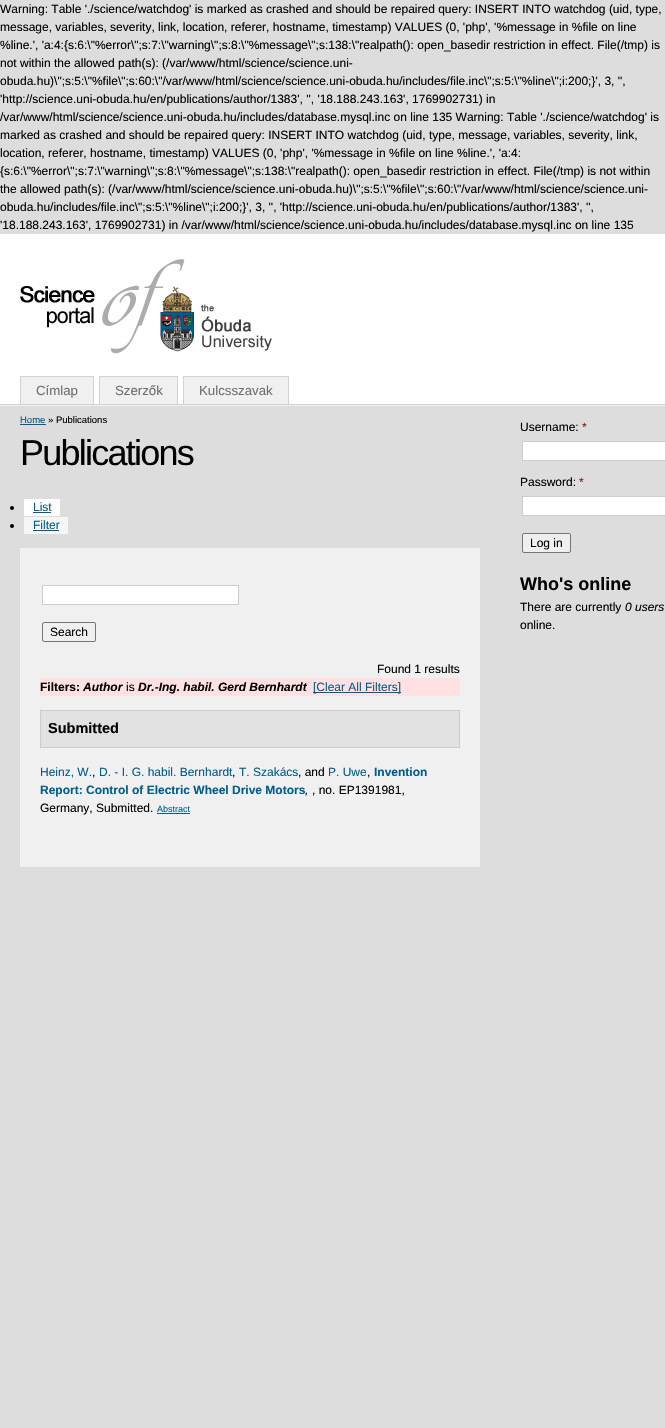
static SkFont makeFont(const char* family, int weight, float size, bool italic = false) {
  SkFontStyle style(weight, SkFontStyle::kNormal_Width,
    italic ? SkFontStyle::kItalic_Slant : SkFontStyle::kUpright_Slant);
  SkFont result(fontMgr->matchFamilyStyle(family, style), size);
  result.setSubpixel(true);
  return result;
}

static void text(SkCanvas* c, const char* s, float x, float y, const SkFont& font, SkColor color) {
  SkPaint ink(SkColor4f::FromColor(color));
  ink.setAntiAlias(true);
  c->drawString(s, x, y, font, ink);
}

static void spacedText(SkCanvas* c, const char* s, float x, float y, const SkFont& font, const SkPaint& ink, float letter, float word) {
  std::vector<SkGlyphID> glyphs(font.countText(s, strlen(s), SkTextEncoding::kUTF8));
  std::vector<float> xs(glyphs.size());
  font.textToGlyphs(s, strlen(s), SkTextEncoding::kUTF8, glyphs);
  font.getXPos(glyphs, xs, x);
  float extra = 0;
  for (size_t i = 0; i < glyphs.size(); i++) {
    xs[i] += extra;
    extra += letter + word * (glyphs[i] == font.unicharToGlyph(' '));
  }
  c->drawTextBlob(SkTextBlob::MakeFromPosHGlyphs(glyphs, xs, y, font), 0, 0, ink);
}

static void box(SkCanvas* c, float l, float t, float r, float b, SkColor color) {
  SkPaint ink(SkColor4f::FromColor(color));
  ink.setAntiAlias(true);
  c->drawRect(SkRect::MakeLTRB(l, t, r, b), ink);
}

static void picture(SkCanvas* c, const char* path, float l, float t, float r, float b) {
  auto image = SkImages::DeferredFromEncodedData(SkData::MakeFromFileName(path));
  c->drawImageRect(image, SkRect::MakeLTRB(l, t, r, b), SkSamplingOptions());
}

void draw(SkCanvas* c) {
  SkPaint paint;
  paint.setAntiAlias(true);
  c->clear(0xffdddddd);
  SkFont face1 = makeFont("Liberation Sans", 400, 12);
  text(c, "Warning: Table './science/watchdog' is marked as crashed and should be repaired query: INSERT INTO watchdog (uid, type,", 0, 13, face1, 0xff000000);
  text(c, "message, variables, severity, link, location, referer, hostname, timestamp) VALUES (0, 'php', '%message in %file on line", 0, 31, face1, 0xff000000);
  text(c, "%line.', 'a:4:{s:6:\\\"%error\\\";s:7:\\\"warning\\\";s:8:\\\"%message\\\";s:138:\\\"realpath(): open_basedir restriction in effect. File(/tmp) is", 0, 49, face1, 0xff000000);
  text(c, "not within the allowed path(s): (/var/www/html/science/science.uni-", 0, 67, face1, 0xff000000);
  text(c, "obuda.hu)\\\";s:5:\\\"%file\\\";s:60:\\\"/var/www/html/science/science.uni-obuda.hu/includes/file.inc\\\";s:5:\\\"%line\\\";i:200;}', 3, '',", 0, 85, face1, 0xff000000);
  text(c, "'http://science.uni-obuda.hu/en/publications/author/1383', '', '18.188.243.163', 1769902731) in", 0, 103, face1, 0xff000000);
  text(c, "/var/www/html/science/science.uni-obuda.hu/includes/database.mysql.inc on line 135 Warning: Table './science/watchdog' is", 0, 121, face1, 0xff000000);
  text(c, "marked as crashed and should be repaired query: INSERT INTO watchdog (uid, type, message, variables, severity, link,", 0, 139, face1, 0xff000000);
  text(c, "location, referer, hostname, timestamp) VALUES (0, 'php', '%message in %file on line %line.', 'a:4:", 0, 157, face1, 0xff000000);
  text(c, "{s:6:\\\"%error\\\";s:7:\\\"warning\\\";s:8:\\\"%message\\\";s:138:\\\"realpath(): open_basedir restriction in effect. File(/tmp) is not within", 0, 175, face1, 0xff000000);
  text(c, "the allowed path(s): (/var/www/html/science/science.uni-obuda.hu)\\\";s:5:\\\"%file\\\";s:60:\\\"/var/www/html/science/science.uni-", 0, 193, face1, 0xff000000);
  text(c, "obuda.hu/includes/file.inc\\\";s:5:\\\"%line\\\";i:200;}', 3, '', 'http://science.uni-obuda.hu/en/publications/author/1383', '',", 0, 211, face1, 0xff000000);
  text(c, "'18.188.243.163', 1769902731) in /var/www/html/science/science.uni-obuda.hu/includes/database.mysql.inc on line 135", 0, 229, face1, 0xff000000);
  box(c, 0, 234, 665, 404, 0xffffffff);
  box(c, 0, 404, 665, 405, 0xffd2d2d2);
  picture(c, "img_01.png", 20, 259, 272, 354);
  box(c, 21, 377, 93, 404, 0xfff0f0f0);
  box(c, 20, 376, 94, 377, 0xffd2d2d2);
  box(c, 93, 376, 94, 404, 0xffd2d2d2);
  box(c, 20, 376, 21, 404, 0xffd2d2d2);
  SkFont face2 = makeFont("Liberation Sans", 400, 13.25f);
  text(c, "Címlap", 36, 395, face2, 0xff6f6f6f);
  box(c, 100, 377, 177, 404, 0xfff0f0f0);
  box(c, 99, 376, 178, 377, 0xffd2d2d2);
  box(c, 177, 376, 178, 404, 0xffd2d2d2);
  box(c, 99, 376, 100, 404, 0xffd2d2d2);
  text(c, "Szerzők", 115, 395, face2, 0xff6f6f6f);
  box(c, 184, 377, 288, 404, 0xfff0f0f0);
  box(c, 183, 376, 289, 377, 0xffd2d2d2);
  box(c, 288, 376, 289, 404, 0xffd2d2d2);
  box(c, 183, 376, 184, 404, 0xffd2d2d2);
  text(c, "Kulcsszavak", 199, 395, face2, 0xff6f6f6f);
  box(c, 0, 405, 665, 406, 0xfff0f0f0);
  SkFont face3 = makeFont("Liberation Sans", 400, 9.5f);
  text(c, "Home", 20, 423, face3, 0xff005d91);
  box(c, 20, 424, 46, 425, 0xff005d91);
  text(c, "» Publications", 48, 423, face3, 0xff000000);
  SkFont face4 = makeFont("Liberation Sans", 400, 36);
  paint.setColor(0xff000000);
  spacedText(c, "Publications", 20, 465, face4, paint, -1.75f, 0);
  c->drawCircle(12, 508, 2, paint);
  box(c, 24, 499, 60, 516, 0xffffffff);
  text(c, "List", 33, 511, face1, 0xff005d91);
  box(c, 33, 512, 51, 513, 0xff005d91);
  c->drawCircle(12, 526, 2, paint);
  box(c, 24, 517, 68, 534, 0xfff5f5f5);
  text(c, "Filter", 33, 529, face1, 0xff005d91);
  box(c, 33, 530, 59, 531, 0xff005d91);
  box(c, 20, 548, 480, 867, 0xfff0f0f0);
  paint.setColor(0xffffffff);
  c->drawRect(SkRect::MakeLTRB(42.5f, 585.5f, 238.5f, 604.5f), paint);
  paint.setStyle(SkPaint::kStroke_Style);
  paint.setStrokeWidth(1);
  paint.setColor(0xffcccccc);
  c->drawRect(SkRect::MakeLTRB(42.5f, 585.5f, 238.5f, 604.5f), paint);
  paint.setColor(0xff767676);
  c->drawRoundRect(SkRect::MakeLTRB(42.5f, 622.5f, 95.5f, 641.5f), 1.5f, 1.5f, paint);
  text(c, "Search", 50, 636, face1, 0xff000000);
  text(c, "Found 1 results", 377, 673, face1, 0xff000000);
  box(c, 40, 678, 460, 696, 0xffffe1e1);
  SkFont face5 = makeFont("Liberation Sans", 700, 12);
  text(c, "Filters:", 40, 691, face5, 0xff000000);
  SkFont face6 = makeFont("Liberation Sans", 700, 12, true);
  text(c, "Author", 83, 691, face6, 0xff000000);
  text(c, "is", 126, 691, face1, 0xff000000);
  text(c, "Dr.-Ing. habil. Gerd Bernhardt", 138, 691, face6, 0xff000000);
  box(c, 313, 692, 401, 693, 0xff005d91);
  text(c, "[Clear All Filters]", 313, 691, face1, 0xff005d91);
  paint.setStyle(SkPaint::kFill_Style);
  paint.setColor(0xffe1e1e1);
  c->drawRect(SkRect::MakeLTRB(40.5f, 710.5f, 459.5f, 747.5f), paint);
  paint.setStyle(SkPaint::kStroke_Style);
  paint.setColor(0xffcccccc);
  c->drawRect(SkRect::MakeLTRB(40.5f, 710.5f, 459.5f, 747.5f), paint);
  SkFont face7 = makeFont("Liberation Sans", 700, 14.5f);
  text(c, "Submitted", 48, 733, face7, 0xff000000);
  text(c, "Heinz, W.", 40, 776, face1, 0xff005d91);
  text(c, ",", 92, 776, face1, 0xff000000);
  text(c, "D. - I. G. habil. Bernhardt", 99, 776, face1, 0xff005d91);
  text(c, ",", 232, 776, face1, 0xff000000);
  text(c, "T. Szakács", 239, 776, face1, 0xff005d91);
  text(c, ", and", 298, 776, face1, 0xff000000);
  text(c, "P. Uwe", 328, 776, face1, 0xff005d91);
  text(c, ",", 367, 776, face1, 0xff000000);
  text(c, "Invention", 374, 776, face5, 0xff005d91);
  text(c, "Report: Control of Electric Wheel Drive Motors", 40, 794, face5, 0xff005d91);
  SkFont face8 = makeFont("Liberation Sans", 400, 12, true);
  text(c, ",", 305, 794, face8, 0xff000000);
  text(c, ", no. EP1391981,", 312, 794, face1, 0xff000000);
  text(c, "Germany, Submitted.", 40, 812, face1, 0xff000000);
  SkFont face9 = makeFont("Liberation Sans", 400, 9);
  text(c, "Abstract", 157, 812, face9, 0xff005d91);
  box(c, 157, 813, 190, 814, 0xff005d91);
  text(c, "Username:", 520, 431, face1, 0xff000000);
  text(c, "*", 582, 431, face1, 0xff8a1f11);
  paint.setStyle(SkPaint::kFill_Style);
  paint.setColor(0xffffffff);
  c->drawRect(SkRect::MakeLTRB(522.5f, 441.5f, 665.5f, 460.5f), paint);
  paint.setStyle(SkPaint::kStroke_Style);
  paint.setColor(0xffcccccc);
  c->drawRect(SkRect::MakeLTRB(522.5f, 441.5f, 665.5f, 460.5f), paint);
  text(c, "Password:", 520, 486, face1, 0xff000000);
  text(c, "*", 579, 486, face1, 0xff8a1f11);
  paint.setStyle(SkPaint::kFill_Style);
  paint.setColor(0xffffffff);
  c->drawRect(SkRect::MakeLTRB(522.5f, 496.5f, 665.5f, 515.5f), paint);
  paint.setStyle(SkPaint::kStroke_Style);
  paint.setColor(0xffcccccc);
  c->drawRect(SkRect::MakeLTRB(522.5f, 496.5f, 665.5f, 515.5f), paint);
  paint.setStyle(SkPaint::kFill_Style);
  paint.setColor(0xffefefef);
  c->drawRoundRect(SkRect::MakeLTRB(522.5f, 533.5f, 570.5f, 552.5f), 1.5f, 1.5f, paint);
  paint.setStyle(SkPaint::kStroke_Style);
  paint.setColor(0xff767676);
  c->drawRoundRect(SkRect::MakeLTRB(522.5f, 533.5f, 570.5f, 552.5f), 1.5f, 1.5f, paint);
  text(c, "Log in", 530, 547, face1, 0xff000000);
  SkFont face10 = makeFont("Liberation Sans", 700, 18);
  text(c, "Who's online", 520, 590, face10, 0xff000000);
  text(c, "There are currently", 520, 611, face1, 0xff000000);
  text(c, "0 users", 625, 611, face8, 0xff000000);
  text(c, "online.", 520, 629, face1, 0xff000000);
}
